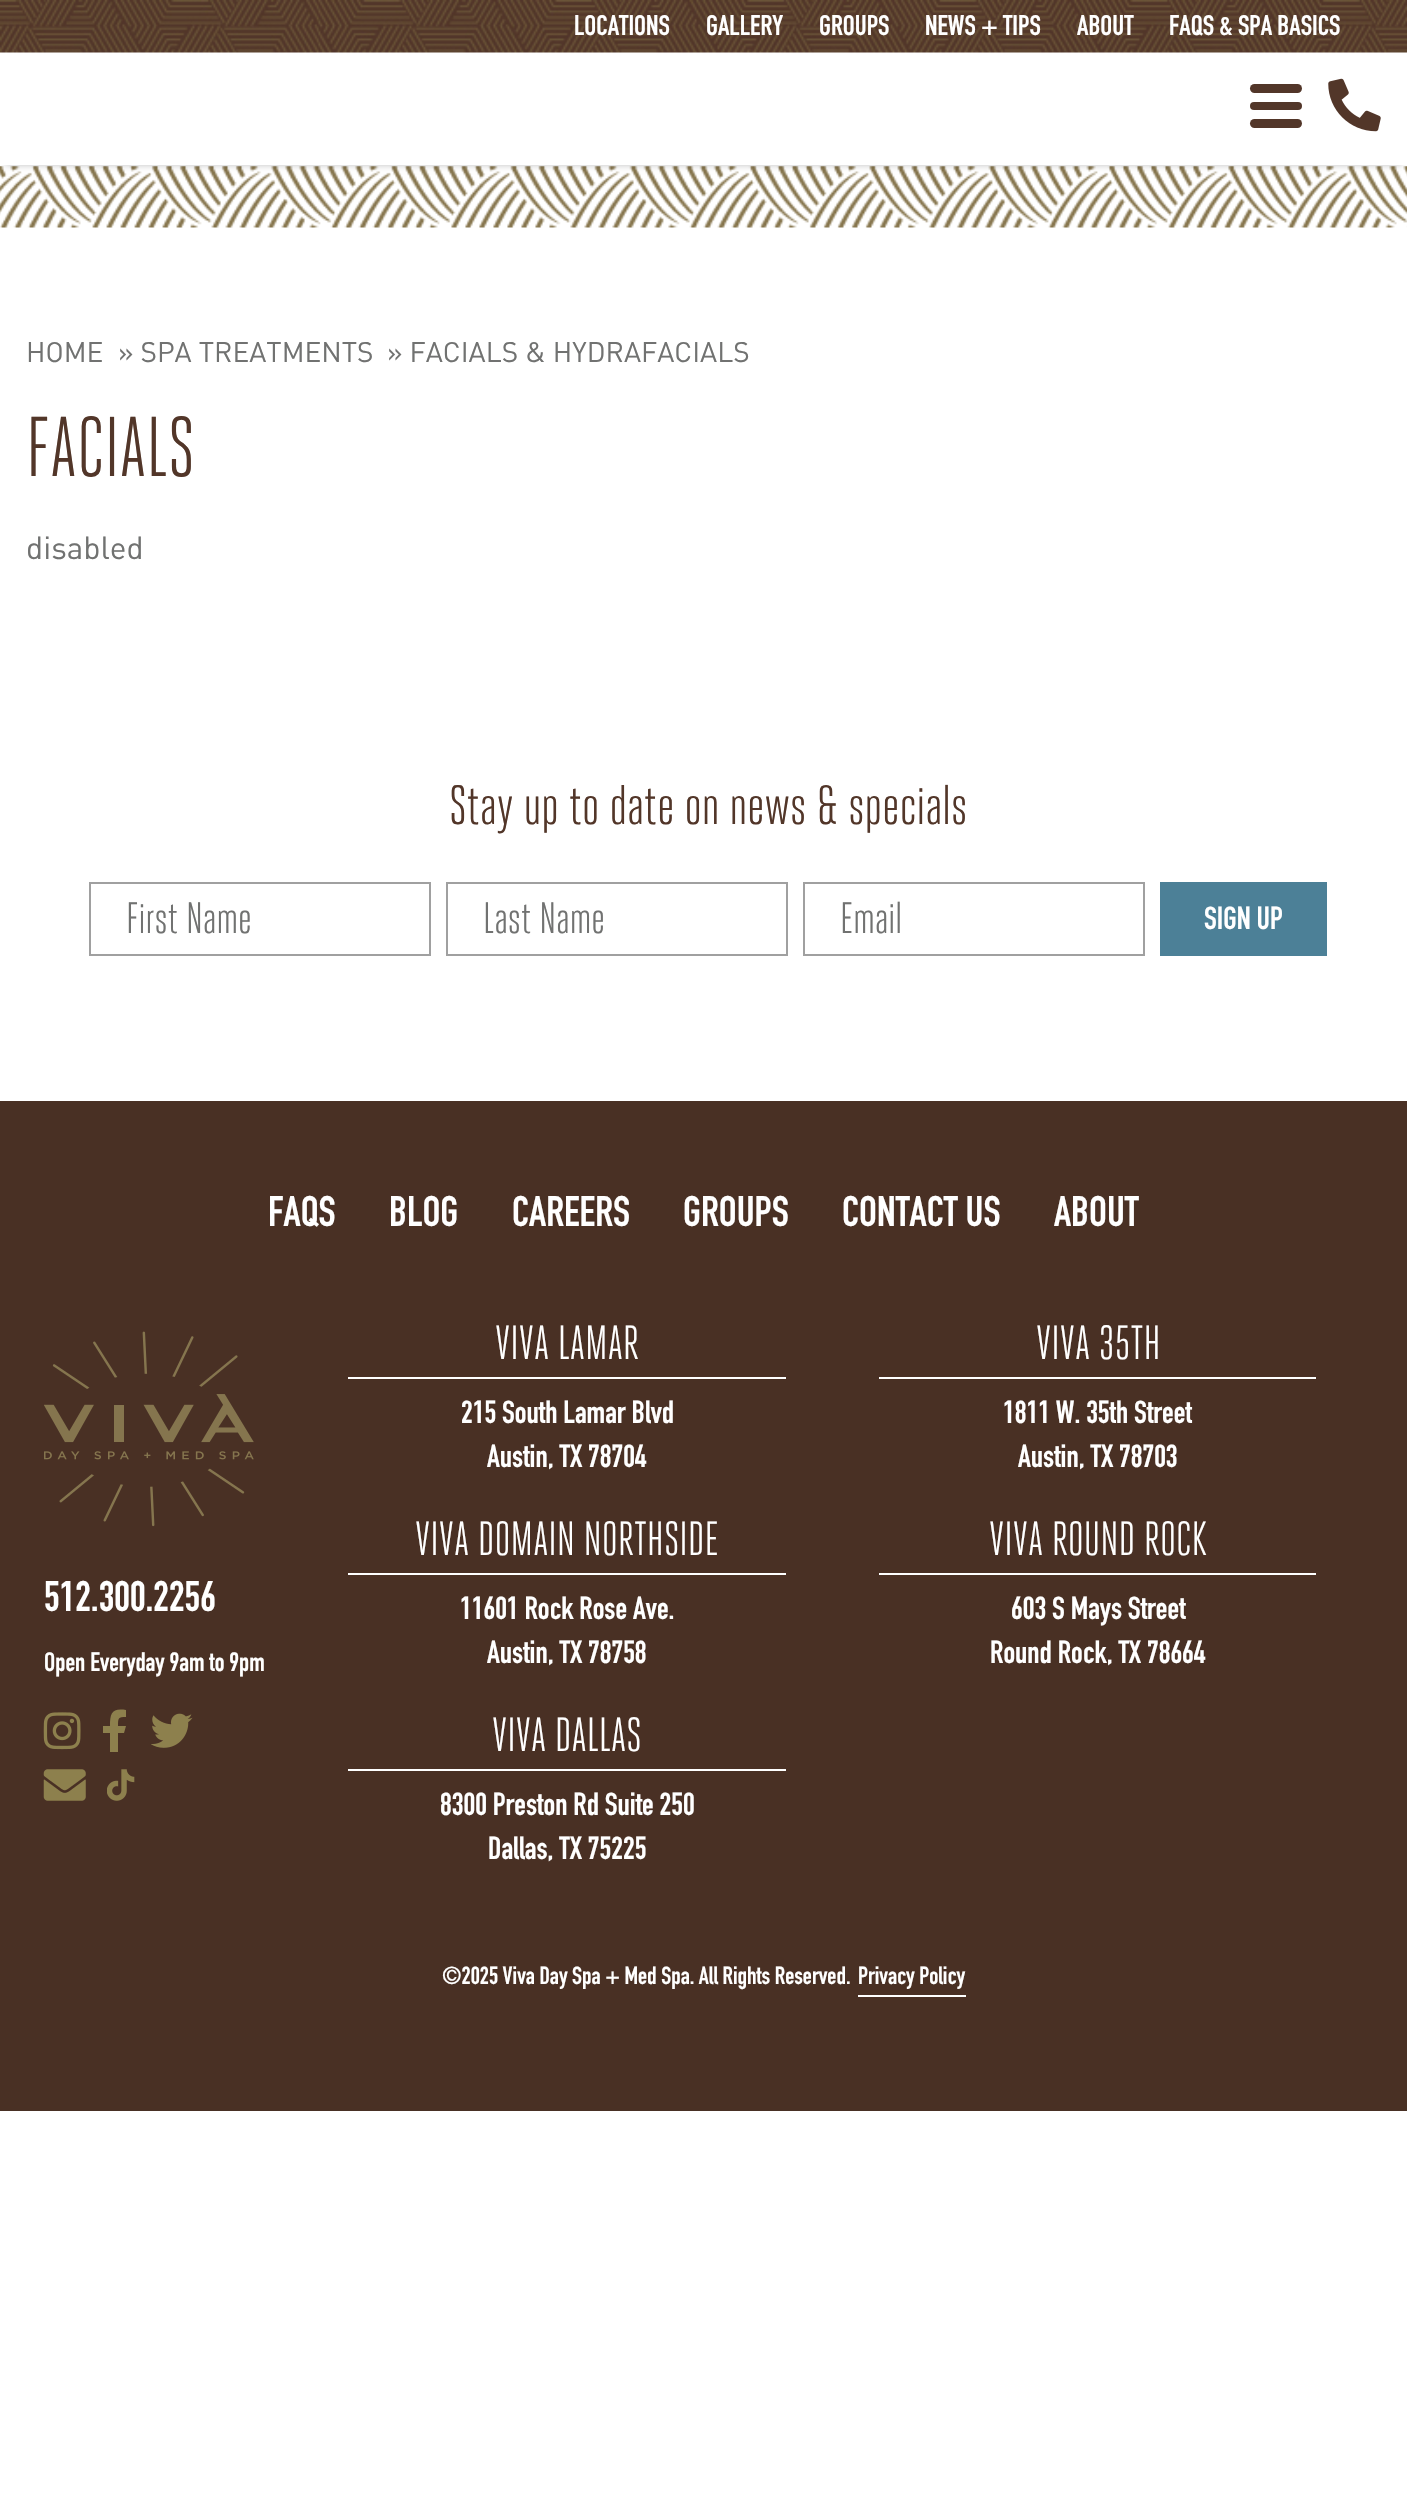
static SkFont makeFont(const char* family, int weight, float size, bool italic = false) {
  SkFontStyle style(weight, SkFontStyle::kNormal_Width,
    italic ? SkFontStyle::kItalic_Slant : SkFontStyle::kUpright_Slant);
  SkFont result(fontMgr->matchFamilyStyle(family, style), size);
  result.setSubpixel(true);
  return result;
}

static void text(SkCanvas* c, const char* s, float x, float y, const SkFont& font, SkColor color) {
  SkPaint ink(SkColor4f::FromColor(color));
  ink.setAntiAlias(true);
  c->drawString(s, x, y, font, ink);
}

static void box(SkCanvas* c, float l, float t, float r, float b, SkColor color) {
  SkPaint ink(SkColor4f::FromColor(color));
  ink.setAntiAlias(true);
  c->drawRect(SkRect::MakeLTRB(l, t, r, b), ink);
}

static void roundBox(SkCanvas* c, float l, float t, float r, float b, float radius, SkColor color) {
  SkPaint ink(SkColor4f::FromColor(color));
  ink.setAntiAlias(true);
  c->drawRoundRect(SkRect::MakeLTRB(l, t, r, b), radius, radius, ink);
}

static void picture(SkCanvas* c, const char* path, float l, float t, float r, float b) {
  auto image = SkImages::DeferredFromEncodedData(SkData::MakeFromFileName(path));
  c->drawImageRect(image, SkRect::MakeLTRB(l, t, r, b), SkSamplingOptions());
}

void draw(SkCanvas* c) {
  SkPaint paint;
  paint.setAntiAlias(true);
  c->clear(0xffffffff);
  picture(c, "img_01.png", 0, 0, 1407, 53);
  SkFont face1 = makeFont("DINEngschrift", 100, 28);
  text(c, "LOCATIONS", 574, 35, face1, 0xffffffff);
  text(c, "GALLERY", 706, 35, face1, 0xffffffff);
  text(c, "GROUPS", 819, 35, face1, 0xffffffff);
  text(c, "NEWS + TIPS", 925, 35, face1, 0xffffffff);
  text(c, "ABOUT", 1077, 35, face1, 0xffffffff);
  text(c, "FAQS & SPA BASICS", 1169, 35, face1, 0xffffffff);
  picture(c, "img_03.png", 0, 166, 1407, 228);
  c->save();
  c->clipPath(SkPathBuilder(SkPathFillType::kEvenOdd).moveTo(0, 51).lineTo(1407, 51).lineTo(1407, 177).lineTo(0, 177).close().moveTo(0, 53).lineTo(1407, 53).lineTo(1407, 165).lineTo(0, 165).close().detach(), true);
  paint.setColor(0x40000000);
  paint.setMaskFilter(SkMaskFilter::MakeBlur(kNormal_SkBlurStyle, 3.5f));
  c->drawRect(SkRect::MakeLTRB(5, 63, 1402, 165), paint);
  paint.setMaskFilter(nullptr);
  c->restore();
  roundBox(c, 1250, 84, 1302, 93, 4.5f, 0xff523629);
  roundBox(c, 1250, 102, 1302, 110, 4, 0xff523629);
  roundBox(c, 1250, 119, 1302, 128, 4.5f, 0xff523629);
  picture(c, "img_02.png", 1328, 78, 1381, 132);
  SkFont face2 = makeFont("DIN", 400, 28);
  text(c, "HOME", 26, 362, face2, 0xff717271);
  text(c, "» SPA TREATMENTS", 118, 362, face2, 0xff717271);
  text(c, "» FACIALS & HYDRAFACIALS", 387, 362, face2, 0xff717271);
  SkFont face3 = makeFont("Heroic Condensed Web", 300, 80.5f);
  text(c, "FACIALS", 26, 476, face3, 0xff523629);
  SkFont face4 = makeFont("DIN", 400, 31.5f);
  text(c, "disabled", 26, 559, face4, 0xff717271);
  SkFont face5 = makeFont("Heroic Condensed Web", 300, 52.5f);
  text(c, "Stay up to date on news & specials", 449, 824, face5, 0xff523629);
  paint.setStyle(SkPaint::kStroke_Style);
  paint.setStrokeWidth(2);
  paint.setColor(0xffa0a0a0);
  c->drawRect(SkRect::MakeLTRB(90, 883, 430, 955), paint);
  SkFont face6 = makeFont("Heroic Condensed Web", 300, 42);
  text(c, "First Name", 126, 933, face6, 0xff717271);
  c->drawRect(SkRect::MakeLTRB(447, 883, 787, 955), paint);
  text(c, "Last Name", 483, 933, face6, 0xff717271);
  c->drawRect(SkRect::MakeLTRB(804, 883, 1144, 955), paint);
  text(c, "Email", 840, 933, face6, 0xff717271);
  box(c, 1160, 882, 1327, 956, 0xff4c8097);
  SkFont face7 = makeFont("DINEngschrift", 100, 31.5f);
  text(c, "SIGN UP", 1204, 929, face7, 0xffffffff);
  box(c, 0, 1101, 1407, 2111, 0xff493024);
  SkFont face8 = makeFont("DINEngschrift", 100, 42);
  text(c, "FAQS", 268, 1226, face8, 0xffffffff);
  text(c, "BLOG", 389, 1226, face8, 0xffffffff);
  text(c, "CAREERS", 512, 1226, face8, 0xffffffff);
  text(c, "GROUPS", 683, 1226, face8, 0xffffffff);
  text(c, "CONTACT US", 842, 1226, face8, 0xffffffff);
  text(c, "ABOUT", 1054, 1226, face8, 0xffffffff);
  picture(c, "img_04.png", 44, 1331, 254, 1527);
  text(c, "512.300.2256", 44, 1611, face8, 0xffffffff);
  SkFont face9 = makeFont("DINEngschrift", 100, 26.25f);
  text(c, "Open Everyday 9am to 9pm", 44, 1671, face9, 0xffffffff);
  picture(c, "img_05.png", 43, 1712, 81, 1750);
  paint.setStyle(SkPaint::kFill_Style);
  paint.setColor(0xff8d804d);
  c->drawPath(SkPathBuilder().moveTo(124, 1733).lineTo(126, 1726).lineTo(118, 1726).cubicTo(118, 1718, 118, 1717, 126, 1717).lineTo(126, 1710).cubicTo(112, 1708, 110, 1713, 110, 1726).lineTo(103, 1726).lineTo(103, 1733).lineTo(110, 1733).lineTo(110, 1752).lineTo(118, 1752).lineTo(118, 1733).close().detach(), paint);
  picture(c, "img_06.png", 151, 1713, 193, 1748);
  picture(c, "img_07.png", 43, 1769, 86, 1801);
  picture(c, "img_08.png", 107, 1769, 135, 1801);
  box(c, 348, 1377, 786, 1379, 0xffffffff);
  SkFont face10 = makeFont("Heroic Condensed Web", 300, 45.5f);
  text(c, "VIVA LAMAR", 495, 1359, face10, 0xffffffff);
  text(c, "215 South Lamar Blvd", 461, 1423, face7, 0xffffffff);
  text(c, "Austin, TX 78704", 487, 1467, face7, 0xffffffff);
  box(c, 879, 1377, 1316, 1379, 0xffffffff);
  text(c, "VIVA 35TH", 1036, 1359, face10, 0xffffffff);
  text(c, "1811 W. 35th Street", 1003, 1423, face7, 0xffffffff);
  text(c, "Austin, TX 78703", 1018, 1467, face7, 0xffffffff);
  box(c, 348, 1573, 786, 1575, 0xffffffff);
  text(c, "VIVA DOMAIN NORTHSIDE", 415, 1555, face10, 0xffffffff);
  text(c, "11601 Rock Rose Ave.", 460, 1619, face7, 0xffffffff);
  text(c, "Austin, TX 78758", 487, 1663, face7, 0xffffffff);
  box(c, 879, 1573, 1316, 1575, 0xffffffff);
  text(c, "VIVA ROUND ROCK", 989, 1555, face10, 0xffffffff);
  text(c, "603 S Mays Street", 1011, 1619, face7, 0xffffffff);
  text(c, "Round Rock, TX 78664", 990, 1663, face7, 0xffffffff);
  box(c, 348, 1769, 786, 1771, 0xffffffff);
  text(c, "VIVA DALLAS", 492, 1751, face10, 0xffffffff);
  text(c, "8300 Preston Rd Suite 250", 440, 1815, face7, 0xffffffff);
  text(c, "Dallas, TX 75225", 488, 1859, face7, 0xffffffff);
  SkFont face11 = makeFont("DINEngschrift", 100, 24.5f);
  text(c, "©2025 Viva Day Spa + Med Spa. All Rights Reserved.", 442, 1984, face11, 0xffffffff);
  text(c, "Privacy Policy", 858, 1984, face11, 0xffffffff);
  box(c, 858, 1995, 966, 1997, 0xffffffff);
}
